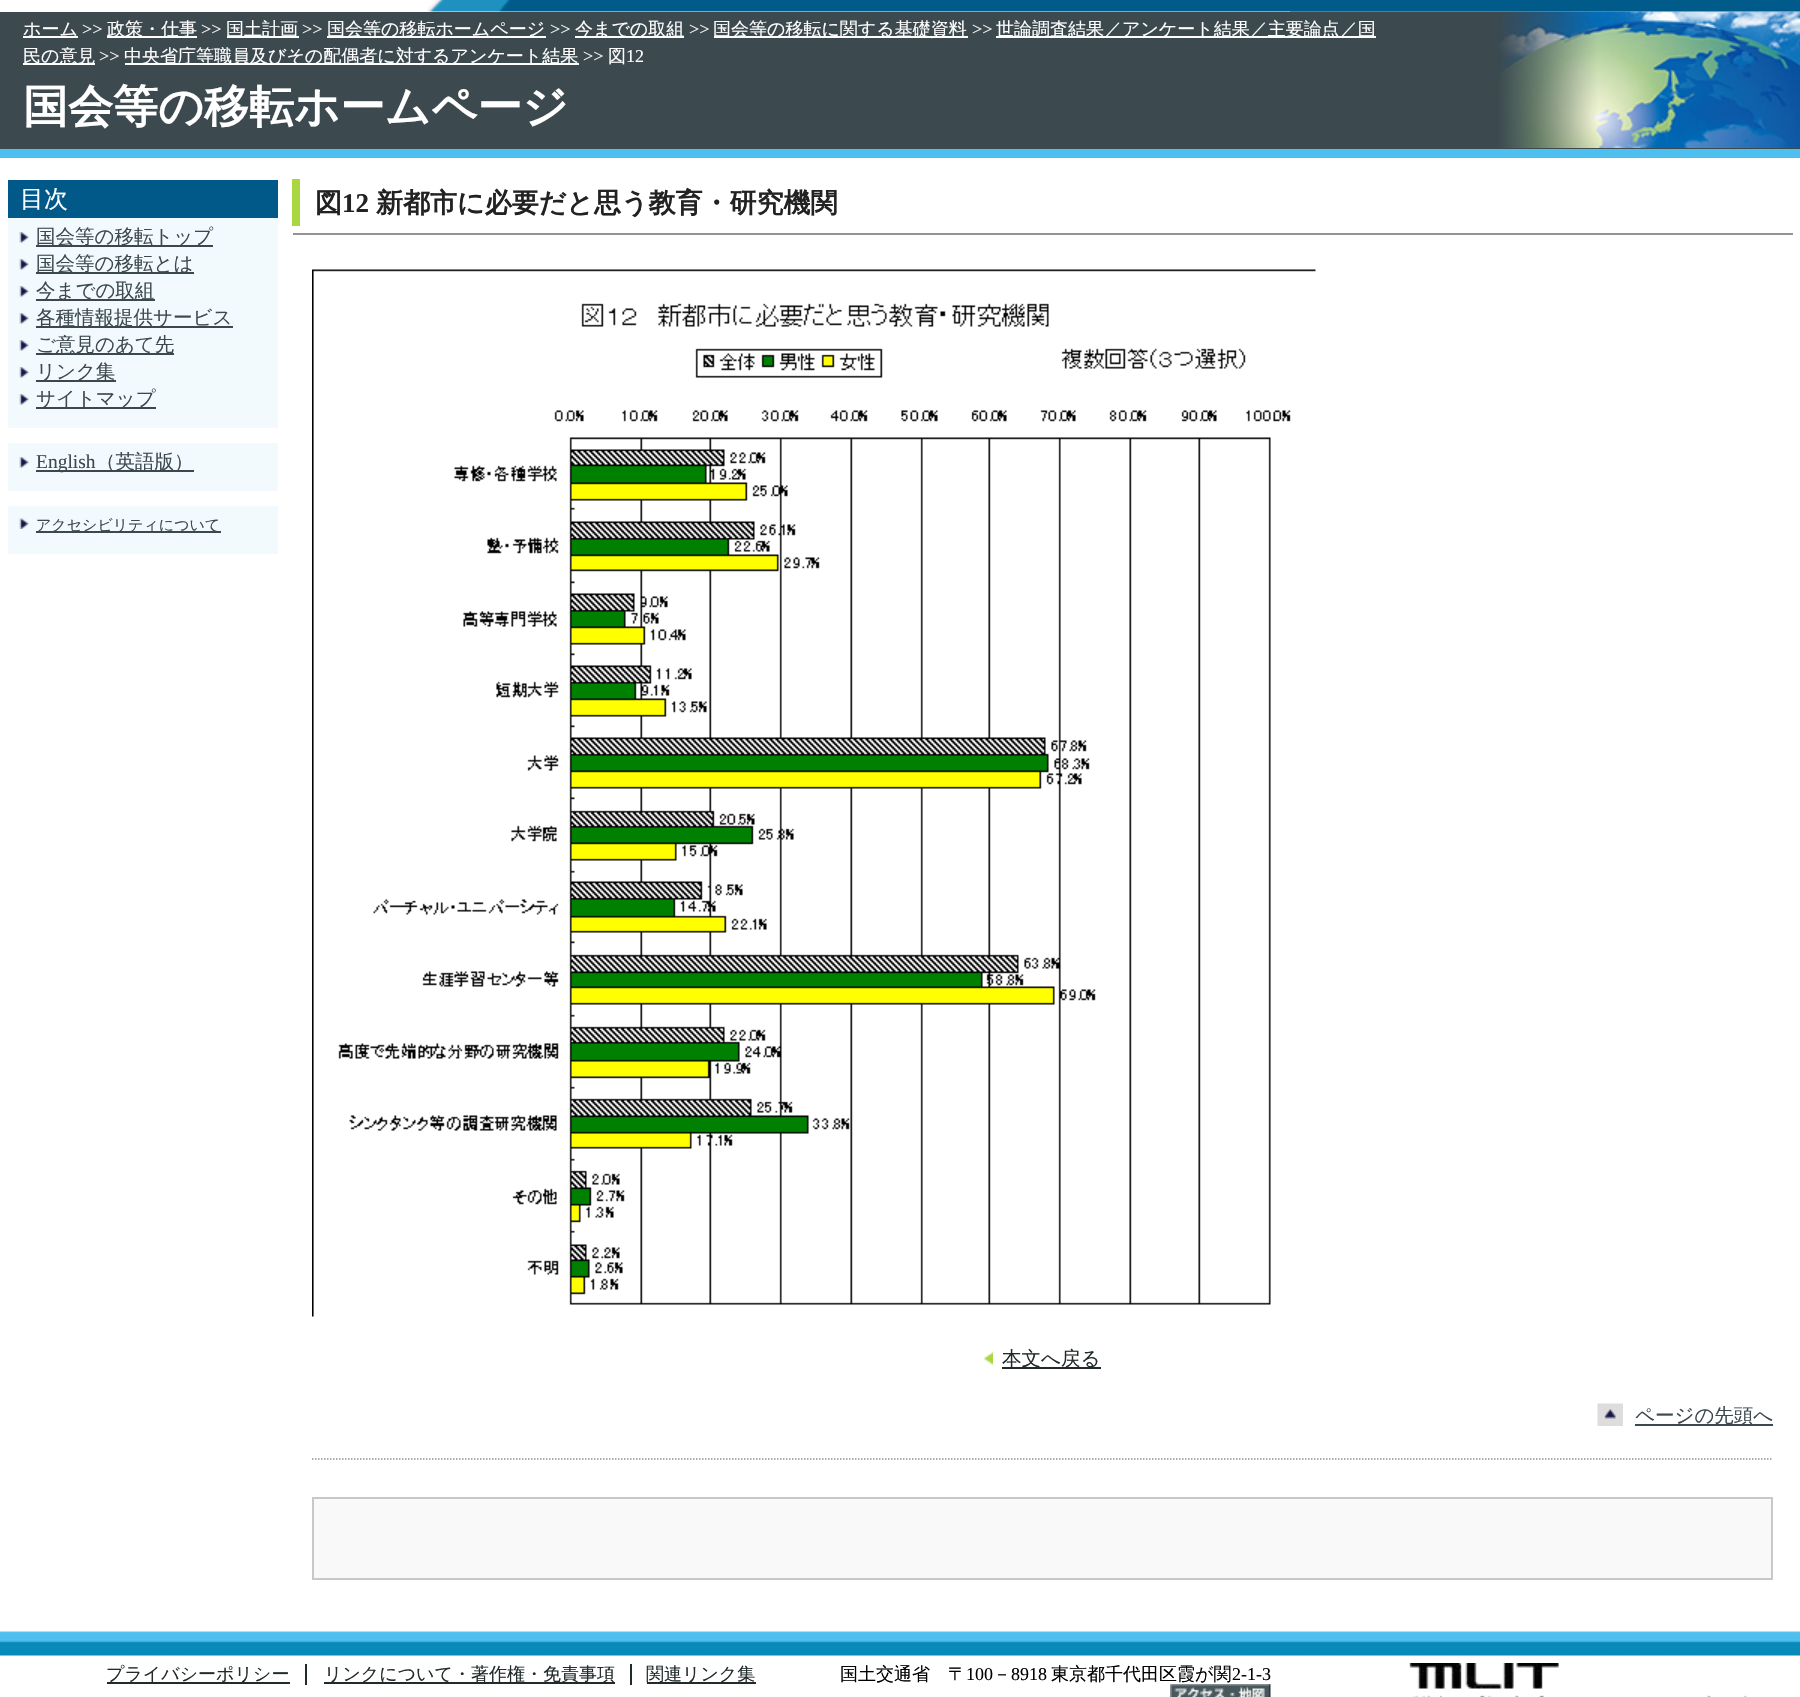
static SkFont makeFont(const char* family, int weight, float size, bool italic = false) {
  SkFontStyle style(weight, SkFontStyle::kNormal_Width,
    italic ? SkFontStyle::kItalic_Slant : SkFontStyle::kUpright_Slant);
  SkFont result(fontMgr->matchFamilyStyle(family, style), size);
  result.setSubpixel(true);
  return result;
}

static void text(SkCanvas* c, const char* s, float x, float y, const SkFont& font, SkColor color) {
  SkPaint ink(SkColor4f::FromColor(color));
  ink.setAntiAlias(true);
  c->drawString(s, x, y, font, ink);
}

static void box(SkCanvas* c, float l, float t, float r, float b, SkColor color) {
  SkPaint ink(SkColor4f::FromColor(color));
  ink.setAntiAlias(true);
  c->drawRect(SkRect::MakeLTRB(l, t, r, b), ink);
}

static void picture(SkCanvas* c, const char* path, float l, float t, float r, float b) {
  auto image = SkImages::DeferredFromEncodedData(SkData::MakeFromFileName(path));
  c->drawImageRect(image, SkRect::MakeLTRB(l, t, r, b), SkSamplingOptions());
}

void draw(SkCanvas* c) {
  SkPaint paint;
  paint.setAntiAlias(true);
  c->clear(0xffffffff);
  box(c, 0, 12, 1800, 149, 0xff3c494f);
  picture(c, "img_02.png", 1290, 11, 1800, 148);
  picture(c, "img_01.png", 427, 0, 1800, 12);
  box(c, 0, 149, 1800, 158, 0xff4dc0f0);
  box(c, 23, 36, 78, 38, 0xffffffff);
  SkFont face1 = makeFont("WenQuanYi Zen Hei", 500, 18);
  text(c, "ホーム", 23, 35, face1, 0xffffffff);
  SkFont face2 = makeFont("Liberation Serif", 400, 18);
  text(c, ">>", 82, 35, face2, 0xffffffff);
  box(c, 107, 36, 197, 38, 0xffffffff);
  text(c, "政策・仕事", 107, 35, face1, 0xffffffff);
  text(c, ">>", 201, 35, face2, 0xffffffff);
  box(c, 227, 36, 299, 38, 0xffffffff);
  text(c, "国土計画", 226, 35, face1, 0xffffffff);
  text(c, ">>", 302, 35, face2, 0xffffffff);
  box(c, 327, 36, 546, 38, 0xffffffff);
  text(c, "国会等の移転ホームページ", 327, 35, face1, 0xffffffff);
  text(c, ">>", 550, 35, face2, 0xffffffff);
  box(c, 575, 36, 684, 38, 0xffffffff);
  text(c, "今までの取組", 575, 35, face1, 0xffffffff);
  text(c, ">>", 689, 35, face2, 0xffffffff);
  box(c, 714, 36, 968, 38, 0xffffffff);
  text(c, "国会等の移転に関する基礎資料", 713, 35, face1, 0xffffffff);
  text(c, ">>", 972, 35, face2, 0xffffffff);
  box(c, 996, 36, 1376, 38, 0xffffffff);
  text(c, "世論調査結果／アンケート結果／主要論点／国", 996, 35, face1, 0xffffffff);
  box(c, 23, 63, 95, 65, 0xffffffff);
  text(c, "民の意見", 23, 62, face1, 0xffffffff);
  text(c, ">>", 99, 62, face2, 0xffffffff);
  box(c, 125, 63, 579, 65, 0xffffffff);
  text(c, "中央省庁等職員及びその配偶者に対するアンケート結果", 124, 62, face1, 0xffffffff);
  text(c, ">>", 583, 62, face2, 0xffffffff);
  text(c, "図", 608, 62, face1, 0xffffffff);
  text(c, "12", 626, 62, face2, 0xffffffff);
  SkFont face3 = makeFont("WenQuanYi Zen Hei", 700, 45);
  text(c, "国会等の移転ホームページ", 23, 122, face3, 0xffffffff);
  box(c, 8, 180, 278, 218, 0xff015989);
  SkFont face4 = makeFont("WenQuanYi Zen Hei", 500, 24);
  text(c, "目次", 20, 207, face4, 0xffffffff);
  box(c, 8, 218, 278, 428, 0xfff3fafe);
  picture(c, "img_03.png", 19, 232, 29, 243);
  box(c, 36, 245, 213, 247, 0xff3b494f);
  SkFont face5 = makeFont("WenQuanYi Zen Hei", 500, 19.5f);
  text(c, "国会等の移転トップ", 36, 243, face5, 0xff3c494f);
  picture(c, "img_03.png", 19, 259, 29, 270);
  box(c, 36, 272, 194, 274, 0xff3b494f);
  text(c, "国会等の移転とは", 36, 270, face5, 0xff3c494f);
  picture(c, "img_03.png", 19, 286, 29, 297);
  box(c, 36, 299, 155, 301, 0xff3b494f);
  text(c, "今までの取組", 36, 297, face5, 0xff3c494f);
  picture(c, "img_03.png", 19, 313, 29, 324);
  box(c, 36, 326, 233, 328, 0xff3b494f);
  text(c, "各種情報提供サービス", 36, 324, face5, 0xff3c494f);
  picture(c, "img_03.png", 19, 340, 29, 351);
  box(c, 36, 353, 174, 355, 0xff3b494f);
  text(c, "ご意見のあて先", 36, 351, face5, 0xff3c494f);
  picture(c, "img_03.png", 19, 367, 29, 378);
  box(c, 36, 380, 116, 382, 0xff3b494f);
  text(c, "リンク集", 36, 378, face5, 0xff3c494f);
  picture(c, "img_03.png", 19, 394, 29, 405);
  box(c, 36, 407, 156, 409, 0xff3b494f);
  text(c, "サイトマップ", 36, 405, face5, 0xff3c494f);
  box(c, 8, 443, 278, 491, 0xfff3fafe);
  picture(c, "img_03.png", 19, 457, 29, 468);
  box(c, 36, 470, 194, 472, 0xff3b494f);
  SkFont face6 = makeFont("Liberation Serif", 400, 19.5f);
  text(c, "English", 36, 468, face6, 0xff3c494f);
  text(c, "（英語版）", 96, 468, face5, 0xff3c494f);
  box(c, 8, 506, 278, 554, 0xfff3fafe);
  picture(c, "img_04.png", 19, 518, 29, 529);
  box(c, 36, 531, 221, 533, 0xff3b494f);
  SkFont face7 = makeFont("WenQuanYi Zen Hei", 500, 15);
  text(c, "アクセシビリティについて", 36, 530, face7, 0xff3c494f);
  box(c, 293, 233, 1793, 235, 0xff909496);
  box(c, 292, 179, 300, 226, 0xffaad641);
  SkFont face8 = makeFont("WenQuanYi Zen Hei", 700, 27);
  text(c, "図", 315, 212, face8, 0xff222222);
  SkFont face9 = makeFont("Liberation Serif", 700, 27);
  text(c, "12", 342, 212, face9, 0xff222222);
  text(c, "新都市に必要だと思う教育・研究機関", 376, 212, face8, 0xff222222);
  picture(c, "img_05.png", 312, 269, 1316, 1317);
  picture(c, "img_06.png", 984, 1352, 993, 1365);
  box(c, 1002, 1367, 1101, 1369, 0xff222a2c);
  text(c, "本文へ戻る", 1002, 1365, face5, 0xff222a2c);
  picture(c, "img_07.png", 1597, 1403, 1623, 1426);
  box(c, 1635, 1424, 1773, 1426, 0xff3c494f);
  text(c, "ページの先頭へ", 1635, 1422, face5, 0xff3c494f);
  paint.setStyle(SkPaint::kStroke_Style);
  paint.setStrokeWidth(1.5f);
  paint.setColor(0xff909496);
  paint.setPathEffect(SkDashPathEffect::Make({{1.5f, 1.5f}}, 0));
  c->drawPath(SkPathBuilder().moveTo(312, 1459).lineTo(1773, 1459).detach(), paint);
  paint.setPathEffect(nullptr);
  paint.setStyle(SkPaint::kFill_Style);
  paint.setColor(0xfff9f9f9);
  c->drawRect(SkRect::MakeLTRB(313, 1498, 1772, 1579), paint);
  paint.setStyle(SkPaint::kStroke_Style);
  paint.setStrokeWidth(2);
  paint.setColor(0xffc8c8c8);
  c->drawRect(SkRect::MakeLTRB(313, 1498, 1772, 1579), paint);
  picture(c, "img_08.png", 0, 1631, 1800, 1656);
  box(c, 107, 1682, 290, 1684, 0xff222a2c);
  text(c, "プライバシーポリシー", 106, 1680, face1, 0xff222a2c);
  box(c, 305, 1664, 307, 1685, 0xff222a2c);
  box(c, 324, 1682, 615, 1684, 0xff222a2c);
  text(c, "リンクについて・著作権・免責事項", 324, 1680, face1, 0xff222a2c);
  box(c, 630, 1664, 632, 1685, 0xff222a2c);
  box(c, 647, 1682, 756, 1684, 0xff222a2c);
  text(c, "関連リンク集", 646, 1680, face1, 0xff222a2c);
  text(c, "国土交通省　〒", 840, 1680, face1, 0xff000000);
  text(c, "100", 966, 1680, face2, 0xff000000);
  text(c, "－", 993, 1680, face1, 0xff000000);
  text(c, "8918", 1011, 1680, face2, 0xff000000);
  text(c, "東京都千代田区霞が関", 1051, 1680, face1, 0xff000000);
  text(c, "2-1-3", 1232, 1680, face2, 0xff000000);
  picture(c, "img_09.png", 1170, 1684, 1271, 1697);
  picture(c, "img_10.png", 1409, 1663, 1747, 1697);
}
